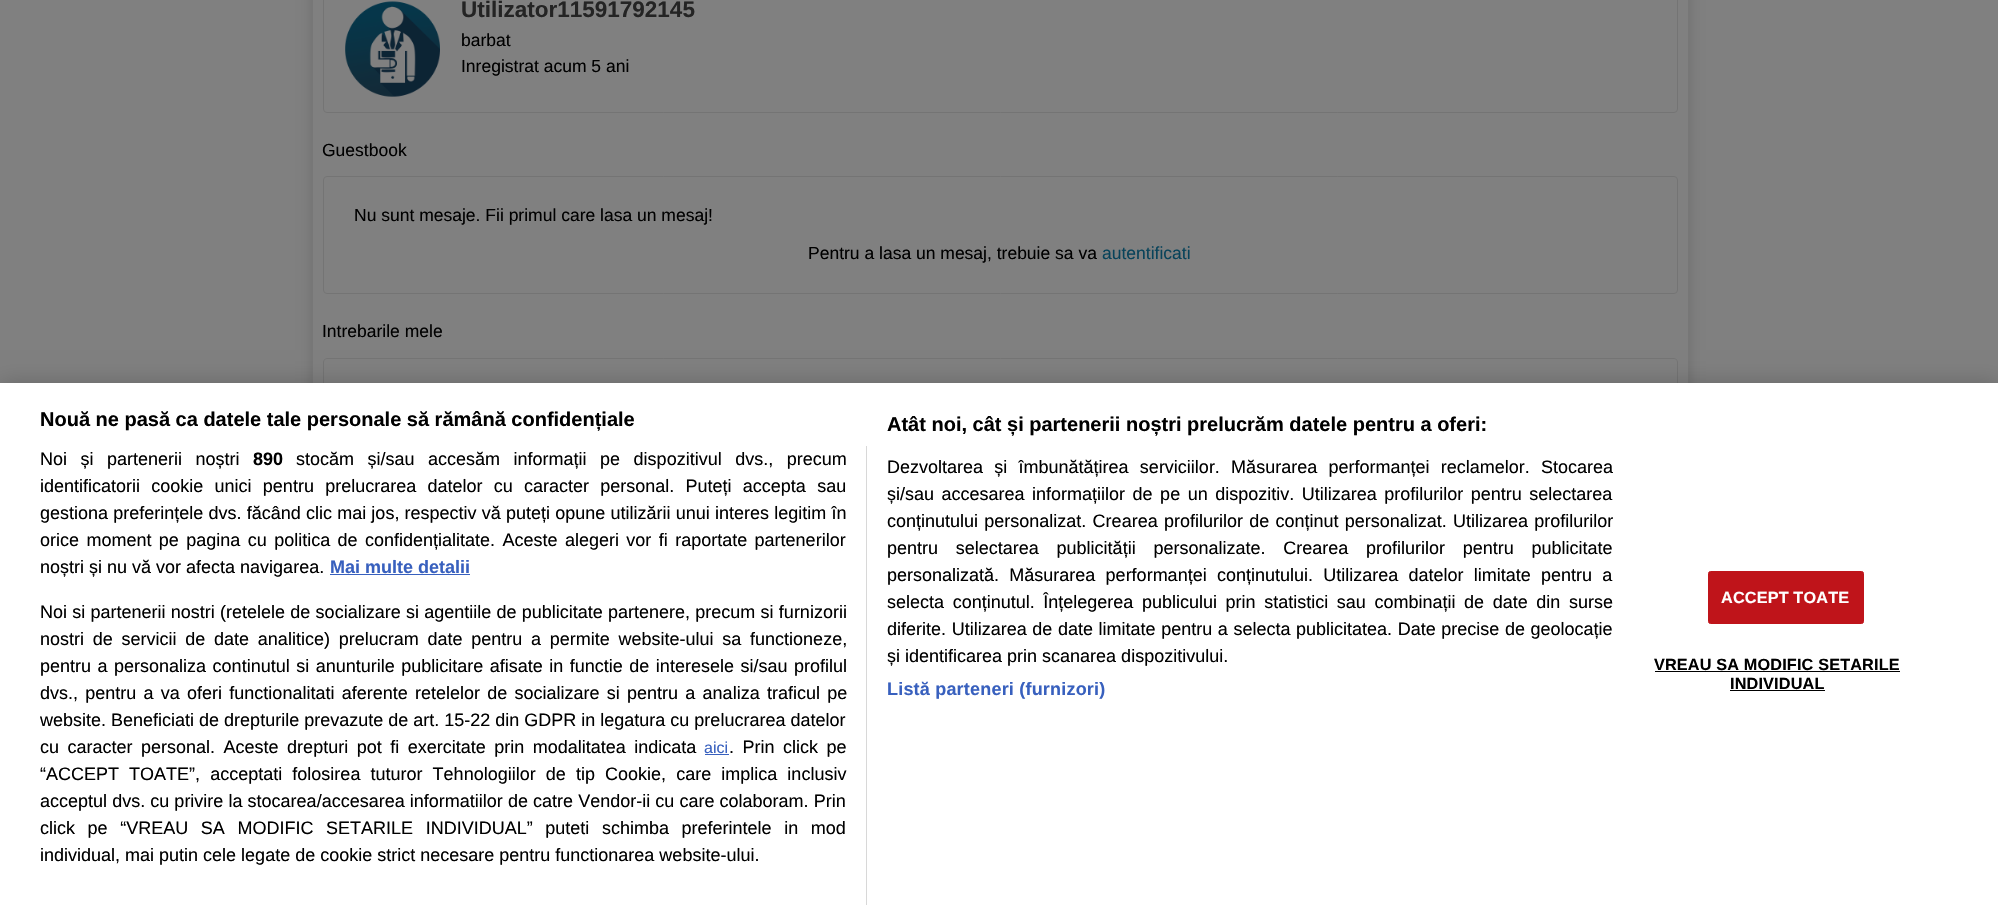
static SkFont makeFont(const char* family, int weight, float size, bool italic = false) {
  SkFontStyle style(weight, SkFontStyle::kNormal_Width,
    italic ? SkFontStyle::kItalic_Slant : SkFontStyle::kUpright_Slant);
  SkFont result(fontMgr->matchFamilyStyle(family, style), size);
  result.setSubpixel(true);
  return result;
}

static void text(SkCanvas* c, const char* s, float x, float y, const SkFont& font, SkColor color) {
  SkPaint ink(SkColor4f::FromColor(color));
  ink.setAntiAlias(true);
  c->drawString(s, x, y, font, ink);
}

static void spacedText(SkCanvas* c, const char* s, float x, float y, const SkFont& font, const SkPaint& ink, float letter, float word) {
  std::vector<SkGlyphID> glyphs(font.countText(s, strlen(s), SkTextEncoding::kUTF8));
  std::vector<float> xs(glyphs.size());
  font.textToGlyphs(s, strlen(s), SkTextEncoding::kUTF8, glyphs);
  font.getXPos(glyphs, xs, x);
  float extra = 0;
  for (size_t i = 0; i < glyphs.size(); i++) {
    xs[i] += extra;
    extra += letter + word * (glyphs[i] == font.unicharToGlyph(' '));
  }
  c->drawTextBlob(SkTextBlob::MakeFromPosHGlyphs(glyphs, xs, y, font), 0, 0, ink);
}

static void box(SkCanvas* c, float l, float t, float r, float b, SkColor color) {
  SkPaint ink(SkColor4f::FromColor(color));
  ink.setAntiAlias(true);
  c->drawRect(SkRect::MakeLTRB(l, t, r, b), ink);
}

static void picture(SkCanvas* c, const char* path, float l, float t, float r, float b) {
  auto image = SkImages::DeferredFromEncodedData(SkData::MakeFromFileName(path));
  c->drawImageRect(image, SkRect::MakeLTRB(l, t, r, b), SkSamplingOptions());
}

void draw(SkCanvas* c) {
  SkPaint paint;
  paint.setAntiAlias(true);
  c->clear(0xff808080);
  paint.setColor(0x26000000);
  paint.setMaskFilter(SkMaskFilter::MakeBlur(kNormal_SkBlurStyle, 7.5f));
  c->drawRoundRect(SkRect::MakeLTRB(313, -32, 1688, 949), 9, 9, paint);
  paint.setMaskFilter(nullptr);
  box(c, 313, 0, 1688, 383, 0xff808080);
  paint.setStyle(SkPaint::kStroke_Style);
  paint.setStrokeWidth(1);
  paint.setColor(0xff747474);
  c->drawRoundRect(SkRect::MakeLTRB(323.5f, -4.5f, 1677.5f, 112.5f), 3.5f, 3.5f, paint);
  picture(c, "img_01.png", 345, 1, 440, 97);
  SkFont face1 = makeFont("Liberation Sans", 700, 22.5f);
  text(c, "Utilizator11591792145", 461, 17, face1, 0xff242424);
  SkFont face2 = makeFont("Liberation Sans", 400, 17.5f);
  text(c, "barbat", 461, 46, face2, 0xff000000);
  text(c, "Inregistrat acum 5 ani", 461, 72, face2, 0xff000000);
  text(c, "Guestbook", 322, 156, face2, 0xff000000);
  c->drawRoundRect(SkRect::MakeLTRB(323.5f, 176.5f, 1677.5f, 293.5f), 3.5f, 3.5f, paint);
  text(c, "Nu sunt mesaje. Fii primul care lasa un mesaj!", 354, 221, face2, 0xff000000);
  text(c, "Pentru a lasa un mesaj, trebuie sa va", 808, 259, face2, 0xff000000);
  text(c, "autentificati", 1102, 259, face2, 0xff08435a);
  text(c, "Intrebarile mele", 322, 337, face2, 0xff000000);
  c->drawRoundRect(SkRect::MakeLTRB(323.5f, 358.5f, 1677.5f, 529.5f), 3.5f, 3.5f, paint);
  paint.setStyle(SkPaint::kFill_Style);
  paint.setColor(0x33000000);
  paint.setMaskFilter(SkMaskFilter::MakeBlur(kNormal_SkBlurStyle, 11));
  c->drawRect(SkRect::MakeLTRB(0, 383, 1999, 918), paint);
  paint.setMaskFilter(nullptr);
  box(c, 0, 383, 1998, 917, 0xffffffff);
  SkFont face3 = makeFont("Liberation Sans", 700, 20);
  text(c, "Nouă ne pasă ca datele tale personale să rămână confidențiale", 40, 426, face3, 0xff000000);
  text(c, "Atât noi, cât și partenerii noștri prelucrăm datele pentru a oferi:", 887, 431, face3, 0xff000000);
  SkFont face4 = makeFont("Liberation Sans", 400, 18);
  paint.setColor(0xff000000);
  spacedText(c, "Dezvoltarea și îmbunătățirea serviciilor. Măsurarea performanței reclamelor. Stocarea", 887, 473, face4, paint, 0, 6.25f);
  spacedText(c, "și/sau accesarea informațiilor de pe un dispozitiv. Utilizarea profilurilor pentru selectarea", 887, 500, face4, paint, 0, 2.5f);
  spacedText(c, "conținutului personalizat. Crearea profilurilor de conținut personalizat. Utilizarea profilurilor", 887, 527, face4, paint, 0, 1.25f);
  spacedText(c, "pentru selectarea publicității personalizate. Crearea profilurilor pentru publicitate", 887, 554, face4, paint, 0, 12.75f);
  spacedText(c, "personalizată. Măsurarea performanței conținutului. Utilizarea datelor limitate pentru a", 887, 581, face4, paint, 0, 5.25f);
  spacedText(c, "selecta conținutul. Înțelegerea publicului prin statistici sau combinații de date din surse", 887, 608, face4, paint, 0, 3.6f);
  spacedText(c, "diferite. Utilizarea de date limitate pentru a selecta publicitatea. Date precise de geolocație", 887, 635, face4, paint, 0, 0.6f);
  text(c, "și identificarea prin scanarea dispozitivului.", 887, 662, face4, 0xff000000);
  SkFont face5 = makeFont("Liberation Sans", 700, 18);
  paint.setColor(0xff3860be);
  spacedText(c, "Listă parteneri (furnizori)", 887, 695, face5, paint, 0.2f, 0);
  box(c, 866, 446, 867, 905, 0xffd8d8d8);
  paint.setColor(0xff000000);
  spacedText(c, "Noi și partenerii noștri", 40, 465, face4, paint, 0, 8.5f);
  text(c, "890", 253, 465, face5, 0xff000000);
  spacedText(c, "stocăm și/sau accesăm informații pe dispozitivul dvs., precum", 296, 465, face4, paint, 0, 8.5f);
  spacedText(c, "identificatorii cookie unici pentru prelucrarea datelor cu caracter personal. Puteți accepta sau", 40, 492, face4, paint, 0, 6.25f);
  spacedText(c, "gestiona preferințele dvs. făcând clic mai jos, respectiv vă puteți opune utilizării unui interes legitim în", 40, 519, face4, paint, 0, 0.2f);
  spacedText(c, "orice moment pe pagina cu politica de confidențialitate. Aceste alegeri vor fi raportate partenerilor", 40, 546, face4, paint, 0, 2.4f);
  text(c, "noștri și nu vă vor afecta navigarea.", 40, 573, face4, 0xff000000);
  text(c, "Mai multe detalii", 330, 573, face5, 0xff3860be);
  box(c, 330, 574, 470, 575, 0xff3860be);
  spacedText(c, "Noi si partenerii nostri (retelele de socializare si agentiile de publicitate partenere, precum si furnizorii", 40, 618, face4, paint, 0, 0.25f);
  spacedText(c, "nostri de servicii de date analitice) prelucram date pentru a permite website-ului sa functioneze,", 40, 645, face4, paint, 0, 3.75f);
  spacedText(c, "pentru a personaliza continutul si anunturile publicitare afisate in functie de interesele si/sau profilul", 40, 672, face4, paint, 0, 1.5f);
  spacedText(c, "dvs., pentru a va oferi functionalitati aferente retelelor de socializare si pentru a analiza traficul pe", 40, 699, face4, paint, 0, 2.25f);
  text(c, "website. Beneficiati de drepturile prevazute de art. 15-22 din GDPR in legatura cu prelucrarea datelor", 40, 726, face4, 0xff000000);
  spacedText(c, "cu caracter personal. Aceste drepturi pot fi exercitate prin modalitatea indicata", 40, 753, face4, paint, 0, 3.5f);
  SkFont face6 = makeFont("Liberation Sans", 400, 16);
  text(c, "aici", 704, 753, face6, 0xff3860be);
  box(c, 705, 754, 729, 755, 0xff3860be);
  spacedText(c, ". Prin click pe", 729, 753, face4, paint, 0, 3.5f);
  spacedText(c, "“ACCEPT TOATE”, acceptati folosirea tuturor Tehnologiilor de tip Cookie, care implica inclusiv", 40, 780, face4, paint, 0, 5.1f);
  spacedText(c, "acceptul dvs. cu privire la stocarea/accesarea informatiilor de catre Vendor-ii cu care colaboram. Prin", 40, 807, face4, paint, 0, 0.1f);
  spacedText(c, "click pe “VREAU SA MODIFIC SETARILE INDIVIDUAL” puteti schimba preferintele in mod", 40, 834, face4, paint, 0, 7.6f);
  text(c, "individual, mai putin cele legate de cookie strict necesare pentru functionarea website-ului.", 40, 861, face4, 0xff000000);
  paint.setColor(0xffbf141a);
  c->drawRoundRect(SkRect::MakeLTRB(1708.5f, 571.5f, 1863.5f, 623.5f), 2, 2, paint);
  paint.setStyle(SkPaint::kStroke_Style);
  c->drawRoundRect(SkRect::MakeLTRB(1708.5f, 571.5f, 1863.5f, 623.5f), 2, 2, paint);
  SkFont face7 = makeFont("Liberation Sans", 700, 16.25f);
  paint.setStyle(SkPaint::kFill_Style);
  paint.setColor(0xffffffff);
  spacedText(c, "ACCEPT TOATE", 1721, 603, face7, paint, 0.15f, 0);
  paint.setColor(0xff000000);
  spacedText(c, "VREAU SA MODIFIC SETARILE", 1654, 670, face7, paint, 0.15f, 0);
  box(c, 1655, 671, 1900, 672, 0xff000000);
  spacedText(c, "INDIVIDUAL", 1730, 689, face7, paint, 0.15f, 0);
  box(c, 1730, 690, 1825, 691, 0xff000000);
}
